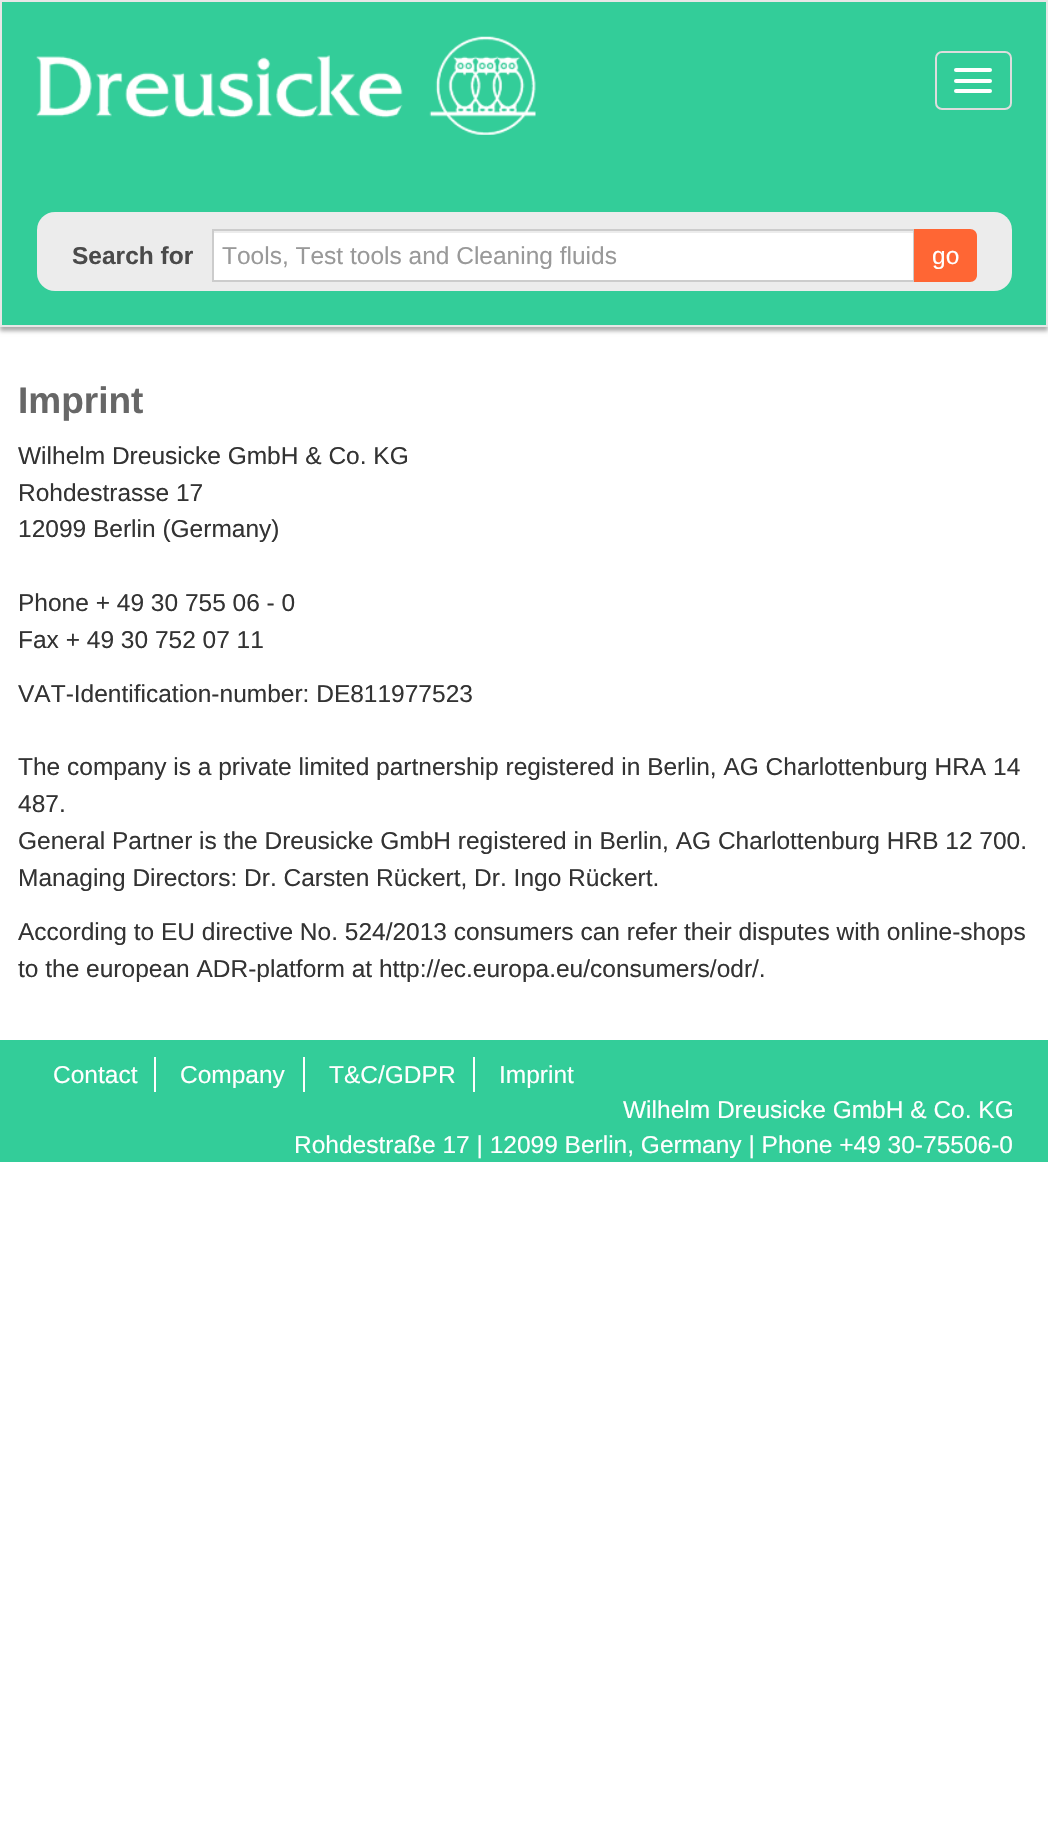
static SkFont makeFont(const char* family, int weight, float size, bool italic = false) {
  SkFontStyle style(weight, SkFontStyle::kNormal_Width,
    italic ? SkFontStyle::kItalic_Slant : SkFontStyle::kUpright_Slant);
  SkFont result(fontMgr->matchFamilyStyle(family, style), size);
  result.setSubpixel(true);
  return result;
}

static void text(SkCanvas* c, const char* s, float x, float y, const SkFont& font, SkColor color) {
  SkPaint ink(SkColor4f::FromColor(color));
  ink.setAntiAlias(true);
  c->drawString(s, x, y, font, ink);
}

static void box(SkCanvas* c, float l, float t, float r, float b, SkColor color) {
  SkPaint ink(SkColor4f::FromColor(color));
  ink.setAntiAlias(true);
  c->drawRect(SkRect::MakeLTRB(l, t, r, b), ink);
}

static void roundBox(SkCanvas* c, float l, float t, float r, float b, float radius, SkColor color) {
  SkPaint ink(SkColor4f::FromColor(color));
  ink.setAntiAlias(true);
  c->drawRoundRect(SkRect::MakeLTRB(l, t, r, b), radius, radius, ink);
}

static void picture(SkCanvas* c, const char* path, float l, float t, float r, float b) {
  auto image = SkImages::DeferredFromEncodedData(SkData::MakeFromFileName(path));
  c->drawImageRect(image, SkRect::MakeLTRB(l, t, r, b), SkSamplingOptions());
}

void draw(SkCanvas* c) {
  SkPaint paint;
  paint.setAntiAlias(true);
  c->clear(0xffffffff);
  paint.setColor(0x52000000);
  paint.setMaskFilter(SkMaskFilter::MakeBlur(kNormal_SkBlurStyle, 2));
  c->drawRect(SkRect::MakeLTRB(0, 4, 1048, 331), paint);
  paint.setMaskFilter(nullptr);
  paint.setColor(0xff33cd99);
  c->drawRect(SkRect::MakeLTRB(1, 1, 1047, 326), paint);
  paint.setStyle(SkPaint::kStroke_Style);
  paint.setStrokeWidth(2);
  paint.setColor(0xffe7e7e7);
  c->drawRect(SkRect::MakeLTRB(1, 1, 1047, 326), paint);
  picture(c, "img_01.png", 36, 36, 536, 135);
  paint.setColor(0xffdddddd);
  c->drawRoundRect(SkRect::MakeLTRB(936, 52, 1011, 109), 6, 6, paint);
  roundBox(c, 954, 68, 992, 72, 2, 0xffffffff);
  roundBox(c, 954, 79, 992, 83, 2, 0xffffffff);
  roundBox(c, 954, 89, 992, 93, 2, 0xffffffff);
  roundBox(c, 37, 212, 1012, 291, 18, 0xffececec);
  SkFont face1 = makeFont("Liberation Sans", 700, 24.5f);
  text(c, "Search for", 72, 264, face1, 0xff4a4a4a);
  box(c, 214, 233, 913, 280, 0xffffffff);
  paint.setColor(0xffcccccc);
  c->drawRect(SkRect::MakeLTRB(213, 230, 914, 281), paint);
  SkFont face2 = makeFont("Liberation Sans", 400, 24.5f);
  text(c, "Tools, Test tools and Cleaning fluids", 222, 264, face2, 0xff999999);
  paint.setStyle(SkPaint::kFill_Style);
  paint.setColor(0xffff6634);
  c->drawPath(SkPathBuilder().moveTo(914, 229).lineTo(970, 229).cubicTo(974, 229, 977, 232, 977, 236).lineTo(977, 275).cubicTo(977, 279, 974, 282, 970, 282).lineTo(914, 282).close().detach(), paint);
  text(c, "go", 932, 264, face2, 0xffffffff);
  SkFont face3 = makeFont("Liberation Sans", 700, 37);
  text(c, "Imprint", 18, 413, face3, 0xff676767);
  text(c, "Wilhelm Dreusicke GmbH & Co. KG", 18, 464, face2, 0xff333333);
  text(c, "Rohdestrasse 17", 18, 501, face2, 0xff333333);
  text(c, "12099 Berlin (Germany)", 18, 537, face2, 0xff333333);
  text(c, "Phone + 49 30 755 06 - 0", 18, 611, face2, 0xff333333);
  text(c, "Fax + 49 30 752 07 11", 18, 648, face2, 0xff333333);
  text(c, "VAT-Identification-number: DE811977523", 18, 702, face2, 0xff333333);
  text(c, "The company is a private limited partnership registered in Berlin, AG Charlottenburg HRA 14", 18, 775, face2, 0xff333333);
  text(c, "487.", 18, 812, face2, 0xff333333);
  text(c, "General Partner is the Dreusicke GmbH registered in Berlin, AG Charlottenburg HRB 12 700.", 18, 849, face2, 0xff333333);
  text(c, "Managing Directors: Dr. Carsten Rückert, Dr. Ingo Rückert.", 18, 886, face2, 0xff333333);
  text(c, "According to EU directive No. 524/2013 consumers can refer their disputes with online-shops", 18, 940, face2, 0xff333333);
  text(c, "to the european ADR-platform at http://ec.europa.eu/consumers/odr/.", 18, 977, face2, 0xff333333);
  box(c, 0, 1040, 1048, 1162, 0xff33cd99);
  box(c, 154, 1057, 156, 1092, 0xffffffff);
  text(c, "Contact", 53, 1083, face2, 0xffffffff);
  box(c, 303, 1057, 305, 1092, 0xffffffff);
  text(c, "Company", 180, 1083, face2, 0xffffffff);
  box(c, 473, 1057, 475, 1092, 0xffffffff);
  text(c, "T&C/GDPR", 329, 1083, face2, 0xffffffff);
  text(c, "Imprint", 499, 1083, face2, 0xffffffff);
  text(c, "Wilhelm Dreusicke GmbH & Co. KG", 623, 1118, face2, 0xffffffff);
  text(c, "Rohdestraße 17 | 12099 Berlin, Germany | Phone +49 30-75506-0", 294, 1153, face2, 0xffffffff);
}
